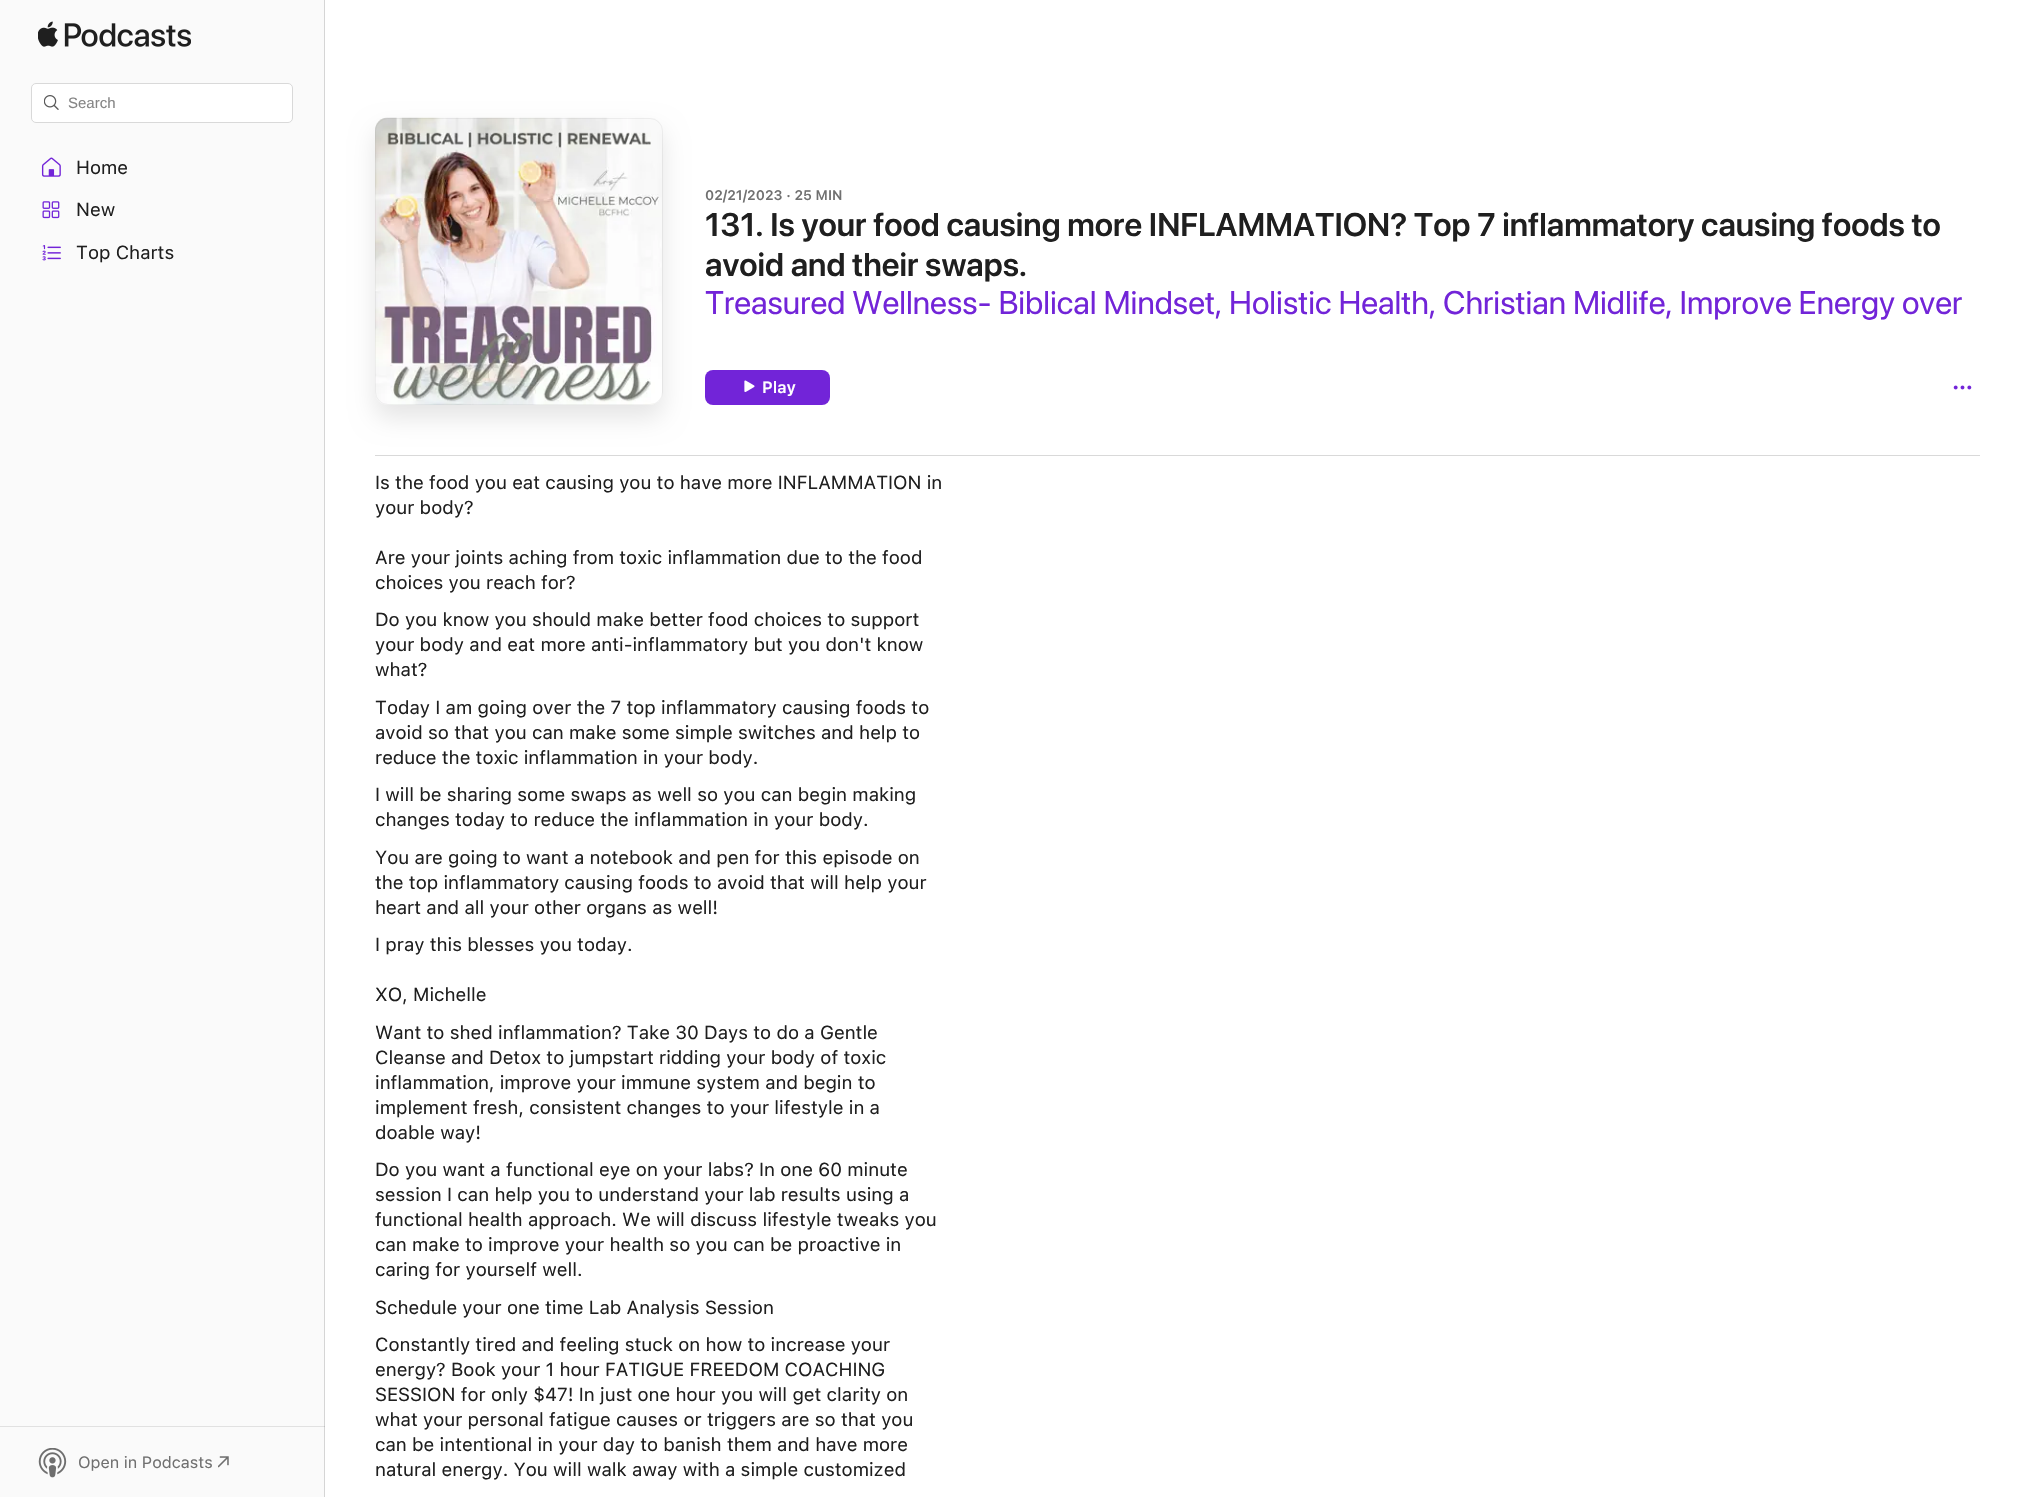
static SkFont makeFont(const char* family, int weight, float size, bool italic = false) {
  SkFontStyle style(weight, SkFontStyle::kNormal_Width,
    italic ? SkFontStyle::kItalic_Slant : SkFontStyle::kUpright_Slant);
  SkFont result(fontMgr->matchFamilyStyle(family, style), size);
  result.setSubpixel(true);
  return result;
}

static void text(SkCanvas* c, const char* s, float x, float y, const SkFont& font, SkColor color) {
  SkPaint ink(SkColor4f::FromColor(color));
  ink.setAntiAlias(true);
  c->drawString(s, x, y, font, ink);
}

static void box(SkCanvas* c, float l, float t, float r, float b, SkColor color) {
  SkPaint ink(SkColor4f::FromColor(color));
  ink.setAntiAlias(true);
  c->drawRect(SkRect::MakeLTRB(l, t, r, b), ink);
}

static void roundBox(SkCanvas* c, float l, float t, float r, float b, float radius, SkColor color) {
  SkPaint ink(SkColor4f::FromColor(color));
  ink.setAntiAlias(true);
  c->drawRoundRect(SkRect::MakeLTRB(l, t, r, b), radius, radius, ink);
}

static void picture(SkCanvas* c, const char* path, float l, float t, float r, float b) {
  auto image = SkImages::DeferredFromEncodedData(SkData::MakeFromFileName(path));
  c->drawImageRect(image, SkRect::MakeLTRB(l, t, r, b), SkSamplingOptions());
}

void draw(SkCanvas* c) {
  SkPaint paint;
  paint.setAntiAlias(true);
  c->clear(0xffffffff);
  box(c, 0, 0, 324, 1497, 0xfffafafa);
  box(c, 0, 1426, 325, 1427, 0xffe1e1e1);
  box(c, 324, 0, 325, 1497, 0xffd5d5d5);
  box(c, 324, 1426, 325, 1427, 0xffc0c0c0);
  picture(c, "img_01.png", 38, 21, 191, 47);
  paint.setColor(0xffffffff);
  c->drawRoundRect(SkRect::MakeLTRB(31.5f, 83.5f, 292.5f, 122.5f), 4.5f, 4.5f, paint);
  paint.setStyle(SkPaint::kStroke_Style);
  paint.setStrokeWidth(1);
  paint.setColor(0xffd9d9d9);
  c->drawRoundRect(SkRect::MakeLTRB(31.5f, 83.5f, 292.5f, 122.5f), 4.5f, 4.5f, paint);
  picture(c, "img_02.png", 44, 95, 59, 110);
  SkFont face1 = makeFont("Liberation Sans", 400, 15);
  text(c, "Search", 68, 108, face1, 0xff858585);
  picture(c, "img_03.png", 41, 157, 61, 177);
  SkFont face2 = makeFont("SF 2", 400, 18.75f);
  text(c, "Home", 76, 174, face2, 0xff1f1f1f);
  picture(c, "img_04.png", 42, 201, 60, 219);
  text(c, "New", 76, 216, face2, 0xff1f1f1f);
  picture(c, "img_05.png", 42, 245, 61, 261);
  text(c, "Top Charts", 76, 259, face2, 0xff1f1f1f);
  picture(c, "img_06.png", 38, 1448, 67, 1478);
  SkFont face3 = makeFont("SF 2", 400, 16.25f);
  text(c, "Open in Podcasts", 78, 1468, face3, 0xff707070);
  picture(c, "img_07.png", 218, 1456, 229, 1468);
  box(c, 375, 455, 1980, 456, 0xffd9d9d9);
  paint.setStyle(SkPaint::kFill_Style);
  paint.setColor(0x1a000000);
  paint.setMaskFilter(SkMaskFilter::MakeBlur(kNormal_SkBlurStyle, 12.5f));
  c->drawRoundRect(SkRect::MakeLTRB(375, 130, 663, 418), 13, 13, paint);
  paint.setMaskFilter(nullptr);
  picture(c, "img_08.png", 375, 117, 662, 405);
  paint.setStyle(SkPaint::kStroke_Style);
  paint.setColor(0x1a808080);
  c->drawRoundRect(SkRect::MakeLTRB(375.5f, 118.5f, 662.5f, 404.5f), 12.5f, 12.5f, paint);
  SkFont face4 = makeFont("SF", 600, 13.75f);
  text(c, "02/21/2023 · 25 MIN", 705, 200, face4, 0xff707070);
  SkFont face5 = makeFont("SF 2", 600, 32.5f);
  text(c, "131. Is your food causing more INFLAMMATION? Top 7 inflammatory causing foods to", 705, 236, face5, 0xff1f1f1f);
  text(c, "avoid and their swaps.", 705, 276, face5, 0xff1f1f1f);
  SkFont face6 = makeFont("SF", 400, 32.5f);
  text(c, "Treasured Wellness- Biblical Mindset, Holistic Health, Christian Midlife, Improve Energy over", 705, 314, face6, 0xff7224d8);
  roundBox(c, 705, 370, 830, 405, 8, 0xff7224d8);
  picture(c, "img_09.png", 744, 380, 755, 392);
  SkFont face7 = makeFont("SF", 600, 16.25f);
  text(c, "Play", 762, 393, face7, 0xffffffff);
  picture(c, "img_10.png", 1953, 385, 1972, 390);
  text(c, "Is the food you eat causing you to have more INFLAMMATION in", 375, 489, face2, 0xff1f1f1f);
  text(c, "your body?", 375, 514, face2, 0xff1f1f1f);
  text(c, "Are your joints aching from toxic inflammation due to the food", 375, 564, face2, 0xff1f1f1f);
  text(c, "choices you reach for?", 375, 589, face2, 0xff1f1f1f);
  text(c, "Do you know you should make better food choices to support", 375, 626, face2, 0xff1f1f1f);
  text(c, "your body and eat more anti-inflammatory but you don't know", 375, 651, face2, 0xff1f1f1f);
  text(c, "what?", 375, 676, face2, 0xff1f1f1f);
  text(c, "Today I am going over the 7 top inflammatory causing foods to", 375, 714, face2, 0xff1f1f1f);
  text(c, "avoid so that you can make some simple switches and help to", 375, 739, face2, 0xff1f1f1f);
  text(c, "reduce the toxic inflammation in your body.", 375, 764, face2, 0xff1f1f1f);
  text(c, "I will be sharing some swaps as well so you can begin making", 375, 801, face2, 0xff1f1f1f);
  text(c, "changes today to reduce the inflammation in your body.", 375, 826, face2, 0xff1f1f1f);
  text(c, "You are going to want a notebook and pen for this episode on", 375, 864, face2, 0xff1f1f1f);
  text(c, "the top inflammatory causing foods to avoid that will help your", 375, 889, face2, 0xff1f1f1f);
  text(c, "heart and all your other organs as well!", 375, 914, face2, 0xff1f1f1f);
  text(c, "I pray this blesses you today.", 375, 951, face2, 0xff1f1f1f);
  text(c, "XO, Michelle", 375, 1001, face2, 0xff1f1f1f);
  text(c, "Want to shed inflammation? Take 30 Days to do a Gentle", 375, 1039, face2, 0xff1f1f1f);
  text(c, "Cleanse and Detox to jumpstart ridding your body of toxic", 375, 1064, face2, 0xff1f1f1f);
  text(c, "inflammation, improve your immune system and begin to", 375, 1089, face2, 0xff1f1f1f);
  text(c, "implement fresh, consistent changes to your lifestyle in a", 375, 1114, face2, 0xff1f1f1f);
  text(c, "doable way!", 375, 1139, face2, 0xff1f1f1f);
  text(c, "Do you want a functional eye on your labs? In one 60 minute", 375, 1176, face2, 0xff1f1f1f);
  text(c, "session I can help you to understand your lab results using a", 375, 1201, face2, 0xff1f1f1f);
  text(c, "functional health approach. We will discuss lifestyle tweaks you", 375, 1226, face2, 0xff1f1f1f);
  text(c, "can make to improve your health so you can be proactive in", 375, 1251, face2, 0xff1f1f1f);
  text(c, "caring for yourself well.", 375, 1276, face2, 0xff1f1f1f);
  text(c, "Schedule your one time Lab Analysis Session", 375, 1314, face2, 0xff1f1f1f);
  text(c, "Constantly tired and feeling stuck on how to increase your", 375, 1351, face2, 0xff1f1f1f);
  text(c, "energy? Book your 1 hour FATIGUE FREEDOM COACHING", 375, 1376, face2, 0xff1f1f1f);
  text(c, "SESSION for only $47! In just one hour you will get clarity on", 375, 1401, face2, 0xff1f1f1f);
  text(c, "what your personal fatigue causes or triggers are so that you", 375, 1426, face2, 0xff1f1f1f);
  text(c, "can be intentional in your day to banish them and have more", 375, 1451, face2, 0xff1f1f1f);
  text(c, "natural energy. You will walk away with a simple customized", 375, 1476, face2, 0xff1f1f1f);
}
